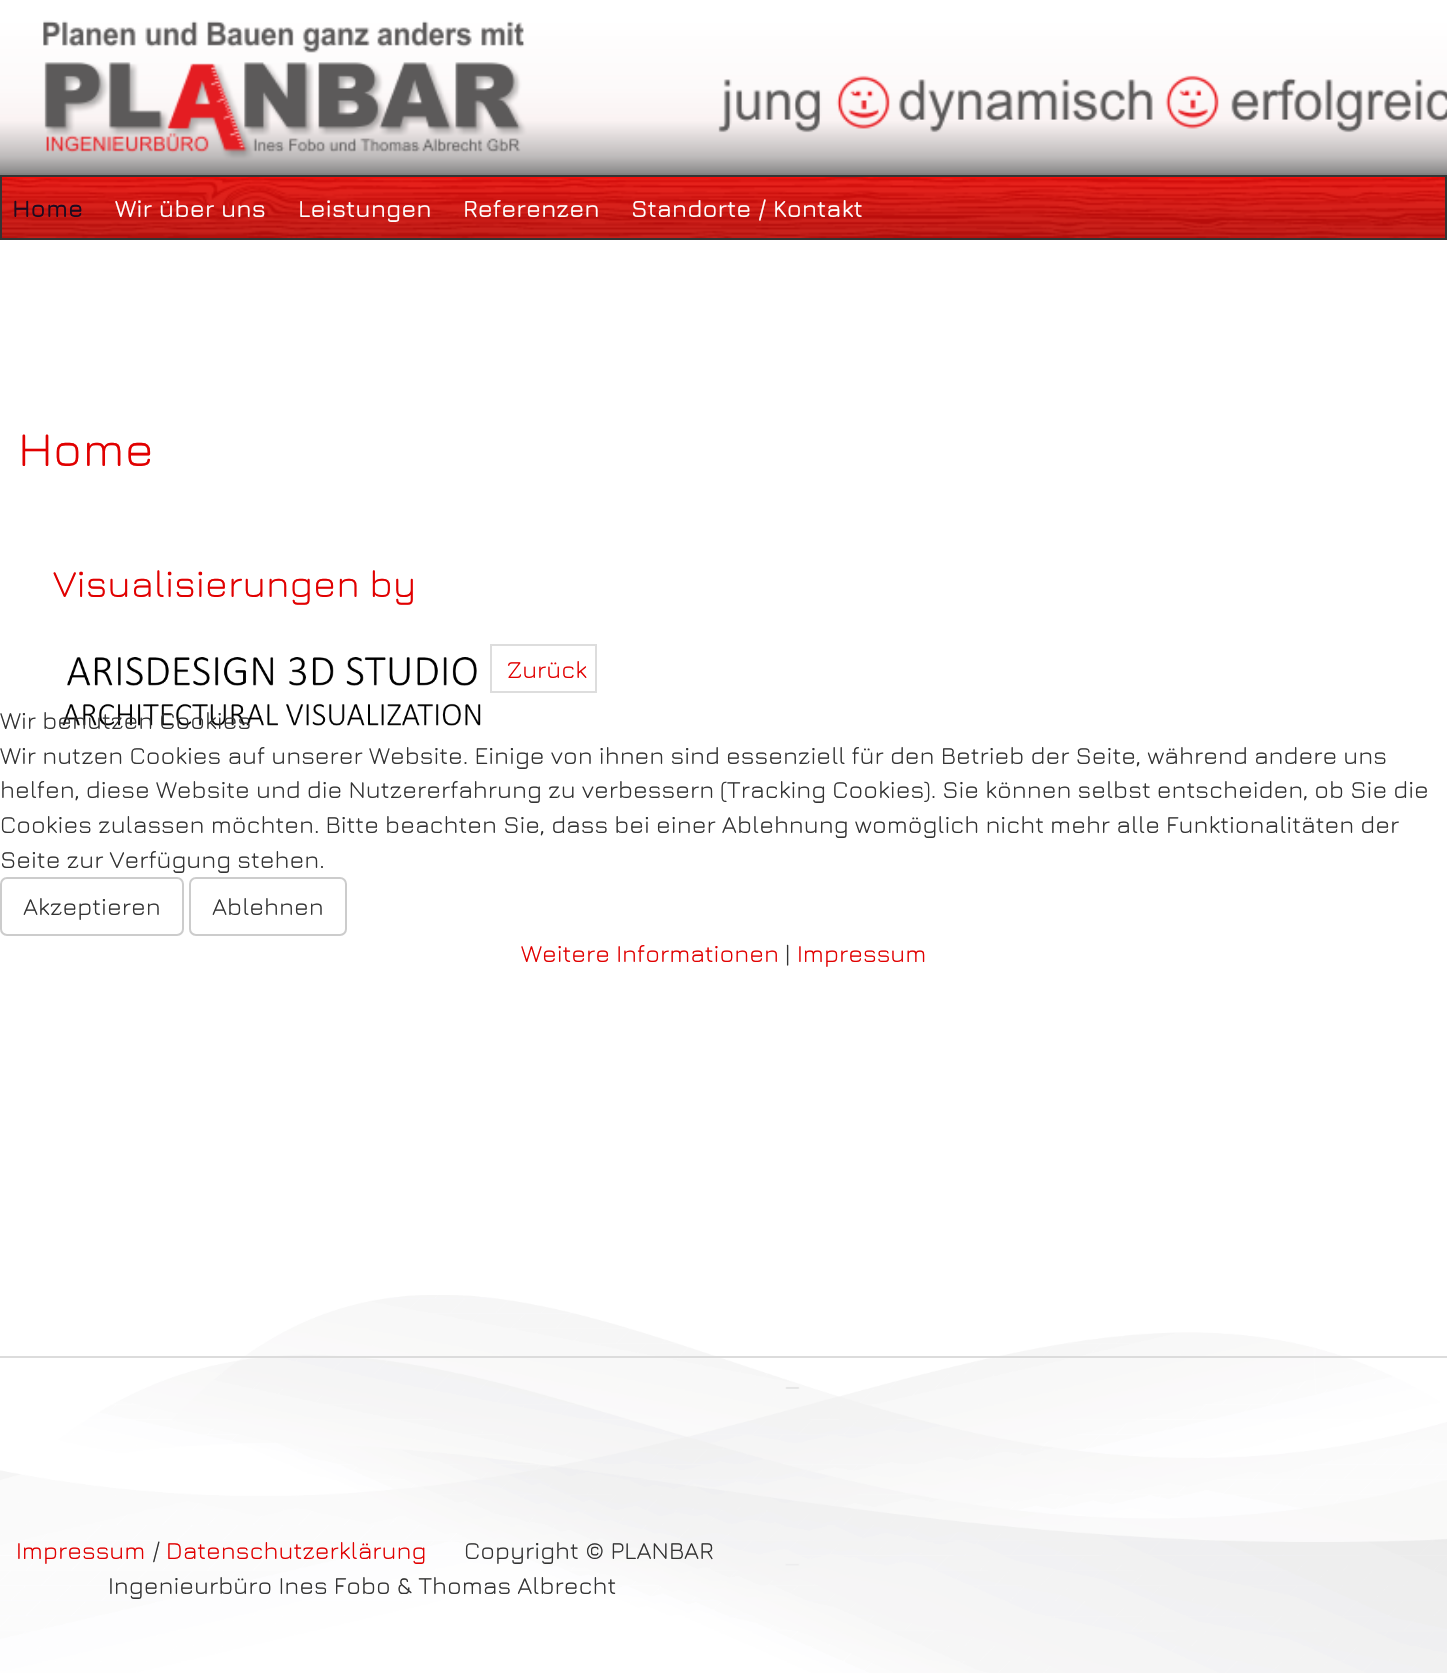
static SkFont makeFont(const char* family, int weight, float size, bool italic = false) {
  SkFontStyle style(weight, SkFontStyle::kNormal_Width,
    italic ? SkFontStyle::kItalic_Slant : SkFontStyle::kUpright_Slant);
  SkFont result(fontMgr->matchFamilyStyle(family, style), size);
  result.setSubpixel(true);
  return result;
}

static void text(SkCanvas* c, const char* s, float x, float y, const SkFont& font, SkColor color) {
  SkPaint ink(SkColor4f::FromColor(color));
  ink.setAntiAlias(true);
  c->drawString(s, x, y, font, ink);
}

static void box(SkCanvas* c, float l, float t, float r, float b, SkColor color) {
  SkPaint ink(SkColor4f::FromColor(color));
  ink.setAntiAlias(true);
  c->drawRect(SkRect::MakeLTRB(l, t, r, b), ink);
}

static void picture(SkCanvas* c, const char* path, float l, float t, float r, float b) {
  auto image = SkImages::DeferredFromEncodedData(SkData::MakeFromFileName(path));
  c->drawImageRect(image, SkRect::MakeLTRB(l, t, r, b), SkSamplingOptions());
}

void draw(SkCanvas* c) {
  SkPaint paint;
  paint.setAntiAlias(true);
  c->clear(0xffffffff);
  picture(c, "img_01.png", 0, 1295, 1447, 1673);
  picture(c, "img_02.png", 0, 20, 1447, 175);
  picture(c, "img_03.png", 2, 177, 1445, 238);
  paint.setStyle(SkPaint::kStroke_Style);
  paint.setStrokeWidth(2);
  paint.setColor(0xff343434);
  c->drawRect(SkRect::MakeLTRB(1, 176, 1446, 239), paint);
  SkFont face1 = makeFont("Jura", 600, 24.5f);
  text(c, "Home", 12, 217, face1, 0xff1d0b20);
  SkFont face2 = makeFont("Jura", 500, 24.5f);
  text(c, "Wir über uns", 115, 217, face2, 0xffffffff);
  text(c, "Leistungen", 298, 217, face2, 0xffffffff);
  text(c, "Referenzen", 463, 217, face2, 0xffffffff);
  text(c, "Standorte / Kontakt", 631, 217, face2, 0xffffffff);
  SkFont face3 = makeFont("Jura", 400, 49);
  text(c, "Home", 18, 466, face3, 0xffe10000);
  SkFont face4 = makeFont("Jura", 400, 38.5f);
  text(c, "Visualisierungen by", 53, 597, face4, 0xffe10000);
  picture(c, "img_04.png", 62, 657, 481, 726);
  paint.setColor(0xffdddddd);
  c->drawRect(SkRect::MakeLTRB(491, 645, 596, 692), paint);
  SkFont face5 = makeFont("Jura", 400, 24.5f);
  text(c, "Zurück", 507, 678, face5, 0xffe10000);
  text(c, "Wir benutzen Cookies", 0, 729, face5, 0xff333333);
  text(c, "Wir nutzen Cookies auf unserer Website. Einige von ihnen sind essenziell für den Betrieb der Seite, während andere uns", 0, 764, face5, 0xff333333);
  text(c, "helfen, diese Website und die Nutzererfahrung zu verbessern (Tracking Cookies). Sie können selbst entscheiden, ob Sie die", 0, 798, face5, 0xff333333);
  text(c, "Cookies zulassen möchten. Bitte beachten Sie, dass bei einer Ablehnung womöglich nicht mehr alle Funktionalitäten der", 0, 833, face5, 0xff333333);
  text(c, "Seite zur Verfügung stehen.", 0, 868, face5, 0xff333333);
  paint.setColor(0xffcccccc);
  c->drawRoundRect(SkRect::MakeLTRB(1, 878, 183, 935), 6, 6, paint);
  text(c, "Akzeptieren", 23, 915, face5, 0xff333333);
  c->drawRoundRect(SkRect::MakeLTRB(190, 878, 346, 935), 6, 6, paint);
  text(c, "Ablehnen", 212, 915, face5, 0xff333333);
  text(c, "Weitere Informationen", 521, 962, face5, 0xffe10000);
  text(c, "|", 785, 962, face5, 0xff333333);
  text(c, "Impressum", 797, 962, face5, 0xffe10000);
  box(c, 0, 1356, 1447, 1358, 0xffdcdcdc);
  text(c, "Impressum", 16, 1559, face5, 0xffe10000);
  text(c, "/", 152, 1559, face5, 0xff333333);
  text(c, "Datenschutzerklärung", 166, 1559, face5, 0xffe10000);
  text(c, "Copyright © PLANBAR", 464, 1559, face5, 0xff333333);
  text(c, "Ingenieurbüro Ines Fobo & Thomas Albrecht", 108, 1594, face5, 0xff333333);
}
